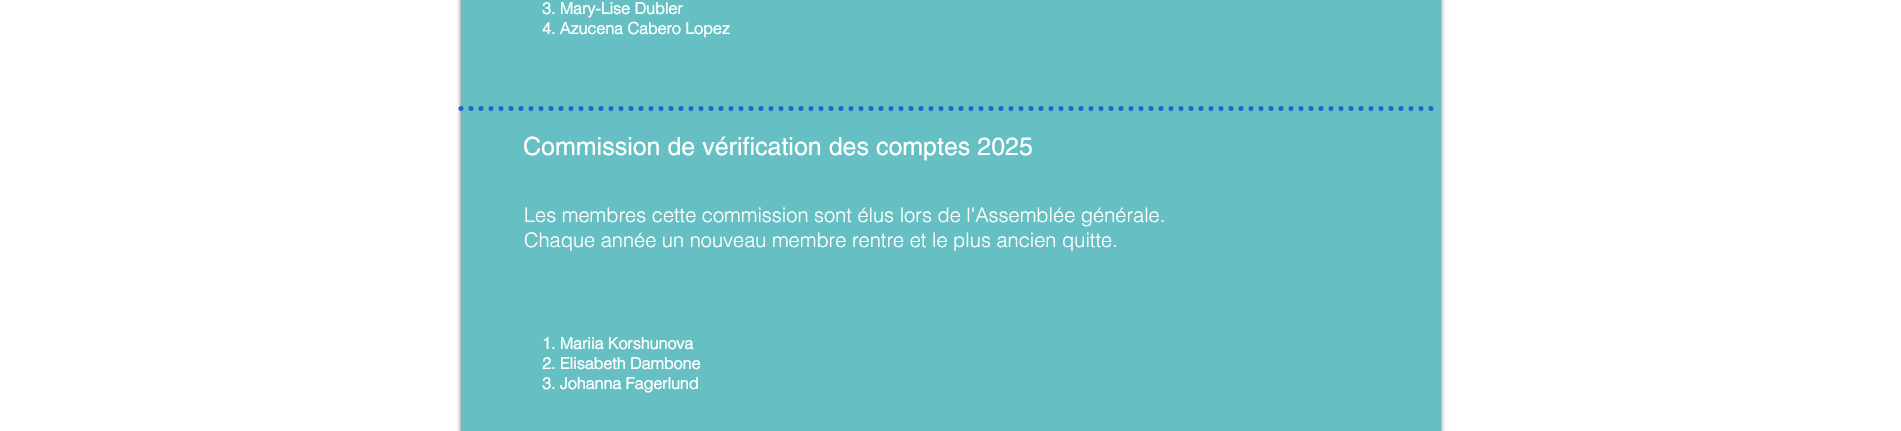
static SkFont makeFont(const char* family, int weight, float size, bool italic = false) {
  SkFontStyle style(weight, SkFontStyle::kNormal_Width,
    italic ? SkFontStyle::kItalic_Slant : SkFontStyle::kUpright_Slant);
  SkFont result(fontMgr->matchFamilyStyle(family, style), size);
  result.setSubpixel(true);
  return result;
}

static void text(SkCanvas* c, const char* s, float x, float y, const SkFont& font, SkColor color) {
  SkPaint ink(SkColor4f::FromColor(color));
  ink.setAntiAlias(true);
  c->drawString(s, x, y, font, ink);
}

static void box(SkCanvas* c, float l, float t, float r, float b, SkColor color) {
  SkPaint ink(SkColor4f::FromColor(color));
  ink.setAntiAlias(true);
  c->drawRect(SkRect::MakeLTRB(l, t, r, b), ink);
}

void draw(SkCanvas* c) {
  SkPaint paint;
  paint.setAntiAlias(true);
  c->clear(0xffffffff);
  paint.setColor(0x99000000);
  paint.setMaskFilter(SkMaskFilter::MakeBlur(kNormal_SkBlurStyle, 2));
  c->drawRoundRect(SkRect::MakeLTRB(461, -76, 1441, 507), 70, 70, paint);
  paint.setMaskFilter(nullptr);
  box(c, 461, 0, 1441, 431, 0xff66bfc2);
  SkFont face1 = makeFont("helvetica", 700, 16);
  text(c, "3. Mary-Lise Dubler", 542, 14, face1, 0xffffffff);
  text(c, "4. Azucena Cabero Lopez", 542, 34, face1, 0xffffffff);
  paint.setStyle(SkPaint::kStroke_Style);
  paint.setStrokeWidth(5);
  paint.setStrokeCap(SkPaint::kRound_Cap);
  paint.setColor(0xff1d67cd);
  paint.setPathEffect(SkDashPathEffect::Make({{0, 10}}, 0));
  c->drawPath(SkPathBuilder().moveTo(461, 108.5f).lineTo(1436, 108.5f).detach(), paint);
  paint.setPathEffect(nullptr);
  SkFont face2 = makeFont("helvetica", 400, 25);
  text(c, "Commission de vérification des comptes 2025", 523, 155, face2, 0xffffffff);
  SkFont face3 = makeFont("helvetica", 300, 20);
  text(c, "Les membres cette commission sont élus lors de l'Assemblée générale.", 524, 222, face3, 0xffffffff);
  text(c, "Chaque année un nouveau membre rentre et le plus ancien quitte.", 524, 247, face3, 0xffffffff);
  text(c, "1. Mariia Korshunova", 542, 349, face1, 0xffffffff);
  text(c, "2. Elisabeth Dambone", 542, 369, face1, 0xffffffff);
  text(c, "3. Johanna Fagerlund", 542, 389, face1, 0xffffffff);
}
